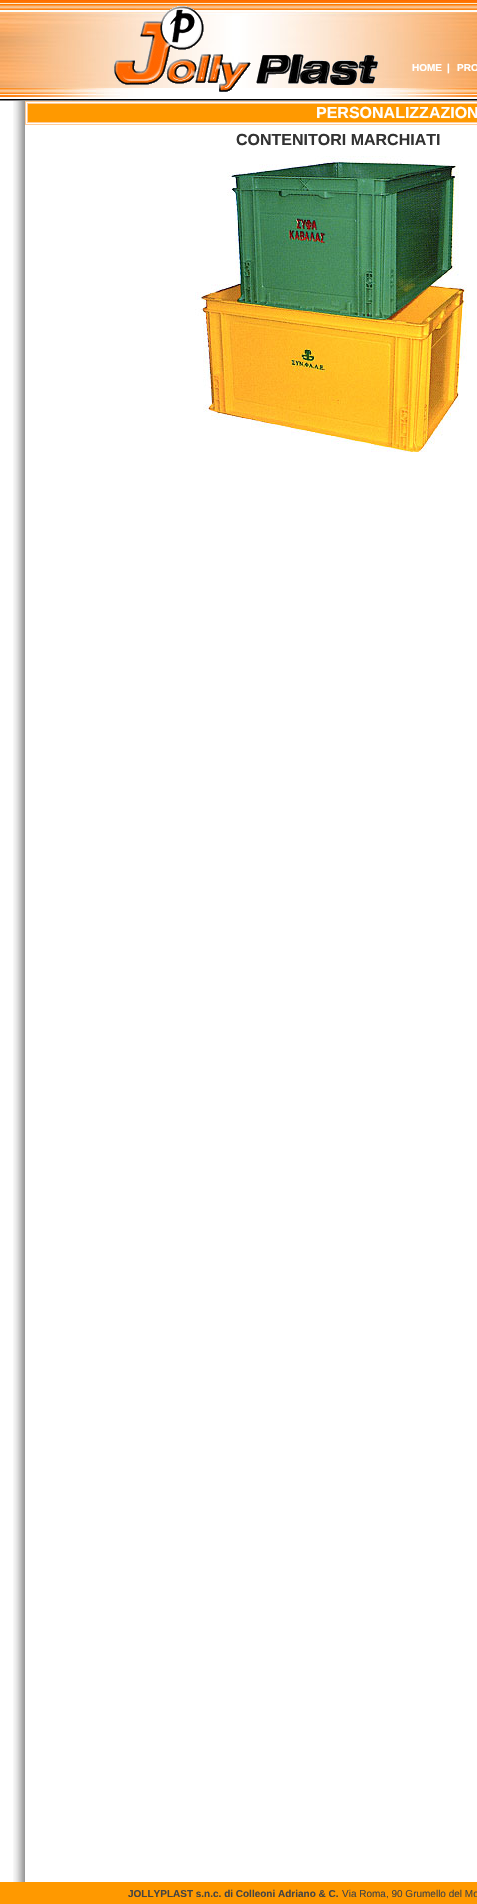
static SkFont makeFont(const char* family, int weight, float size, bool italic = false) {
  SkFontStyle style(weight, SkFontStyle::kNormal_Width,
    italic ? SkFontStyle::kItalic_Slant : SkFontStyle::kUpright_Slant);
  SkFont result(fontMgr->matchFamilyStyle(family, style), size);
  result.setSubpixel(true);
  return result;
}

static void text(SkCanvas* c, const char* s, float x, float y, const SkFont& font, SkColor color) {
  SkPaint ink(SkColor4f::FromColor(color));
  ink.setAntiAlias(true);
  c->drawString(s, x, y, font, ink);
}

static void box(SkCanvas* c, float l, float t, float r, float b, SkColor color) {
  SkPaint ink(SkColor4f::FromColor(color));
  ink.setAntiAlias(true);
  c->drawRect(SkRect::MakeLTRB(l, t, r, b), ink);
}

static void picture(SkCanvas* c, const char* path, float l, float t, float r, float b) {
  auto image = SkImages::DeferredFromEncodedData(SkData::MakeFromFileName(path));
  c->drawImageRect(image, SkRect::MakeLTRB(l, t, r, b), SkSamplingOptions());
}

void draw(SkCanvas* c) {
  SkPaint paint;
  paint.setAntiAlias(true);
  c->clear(0xffffffff);
  picture(c, "img_01.png", 0, 0, 477, 101);
  picture(c, "img_02.png", 114, 6, 378, 92);
  SkFont face1 = makeFont("Liberation Sans", 700, 10);
  text(c, "HOME", 412, 71, face1, 0xffffffff);
  text(c, "|", 447, 71, face1, 0xffffffff);
  text(c, "PRO", 457, 71, face1, 0xffffffff);
  picture(c, "img_03.png", 13, 101, 25, 1882);
  paint.setStyle(SkPaint::kStroke_Style);
  paint.setStrokeWidth(1);
  paint.setColor(0xffffcc99);
  c->drawRect(SkRect::MakeLTRB(25.5f, 101.5f, 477.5f, 124.5f), paint);
  paint.setStyle(SkPaint::kFill_Style);
  paint.setColor(0xffff9900);
  c->drawRect(SkRect::MakeLTRB(27.5f, 103.5f, 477.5f, 122.5f), paint);
  paint.setStyle(SkPaint::kStroke_Style);
  paint.setColor(0xffffcc99);
  c->drawRect(SkRect::MakeLTRB(27.5f, 103.5f, 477.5f, 122.5f), paint);
  SkFont face2 = makeFont("Liberation Sans", 700, 16);
  text(c, "PERSONALIZZAZION", 316, 118, face2, 0xffffffff);
  text(c, "CONTENITORI MARCHIATI", 236, 145, face2, 0xff333333);
  picture(c, "img_04.png", 195, 156, 467, 452);
  box(c, 0, 1882, 477, 1904, 0xffff9900);
  text(c, "JOLLYPLAST s.n.c. di Colleoni Adriano & C.", 128, 1897, face1, 0xff444444);
  SkFont face3 = makeFont("Liberation Sans", 400, 10);
  text(c, "Via Roma, 90 Grumello del Mo", 342, 1897, face3, 0xff444444);
}
